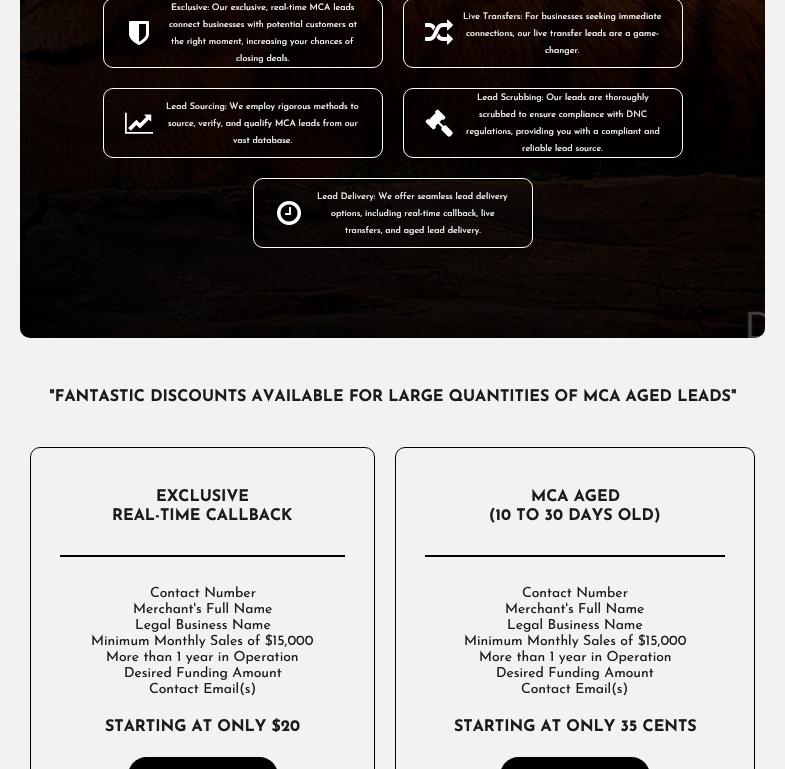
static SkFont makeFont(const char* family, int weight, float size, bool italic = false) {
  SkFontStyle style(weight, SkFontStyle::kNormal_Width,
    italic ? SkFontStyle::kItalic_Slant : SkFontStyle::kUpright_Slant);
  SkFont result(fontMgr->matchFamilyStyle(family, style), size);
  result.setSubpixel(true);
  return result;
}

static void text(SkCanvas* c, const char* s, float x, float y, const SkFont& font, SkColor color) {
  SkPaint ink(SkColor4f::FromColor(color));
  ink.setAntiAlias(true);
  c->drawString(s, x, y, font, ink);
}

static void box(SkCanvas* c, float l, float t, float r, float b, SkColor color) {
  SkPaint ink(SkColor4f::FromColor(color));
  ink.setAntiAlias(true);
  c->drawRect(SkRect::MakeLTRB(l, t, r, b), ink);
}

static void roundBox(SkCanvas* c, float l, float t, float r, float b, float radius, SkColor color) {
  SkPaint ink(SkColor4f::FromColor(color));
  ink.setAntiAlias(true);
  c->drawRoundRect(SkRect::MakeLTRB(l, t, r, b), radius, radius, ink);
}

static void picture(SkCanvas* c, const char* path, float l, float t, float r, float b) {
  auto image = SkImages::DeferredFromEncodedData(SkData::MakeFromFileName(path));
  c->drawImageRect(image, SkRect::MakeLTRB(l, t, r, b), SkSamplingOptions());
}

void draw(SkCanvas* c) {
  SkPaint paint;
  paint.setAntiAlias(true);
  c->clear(0xfff2f2f2);
  roundBox(c, 20, -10, 765, 338, 10, 0xff000000);
  picture(c, "img_01.png", 20, 0, 765, 338);
  paint.setStyle(SkPaint::kStroke_Style);
  paint.setStrokeWidth(1);
  paint.setColor(0xffffffff);
  c->drawRoundRect(SkRect::MakeLTRB(103.5f, -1.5f, 382.5f, 67.5f), 9.5f, 9.5f, paint);
  picture(c, "img_02.png", 129, 21, 149, 45);
  SkFont face1 = makeFont("Josefin Sans", 400, 9);
  text(c, "Exclusive: Our exclusive, real-time MCA leads", 171, 10, face1, 0xffffffff);
  text(c, "connect businesses with potential customers at", 169, 27, face1, 0xffffffff);
  text(c, "the right moment, increasing your chances of", 171, 44, face1, 0xffffffff);
  text(c, "closing deals.", 236, 61, face1, 0xffffffff);
  c->drawRoundRect(SkRect::MakeLTRB(403.5f, -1.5f, 682.5f, 67.5f), 9.5f, 9.5f, paint);
  picture(c, "img_03.png", 425, 19, 453, 45);
  text(c, "Live Transfers: For businesses seeking immediate", 463, 19, face1, 0xffffffff);
  text(c, "connections, our live transfer leads are a game-", 466, 36, face1, 0xffffffff);
  text(c, "changer.", 545, 53, face1, 0xffffffff);
  c->drawRoundRect(SkRect::MakeLTRB(103.5f, 88.5f, 382.5f, 157.5f), 9.5f, 9.5f, paint);
  picture(c, "img_04.png", 125, 112, 153, 134);
  text(c, "Lead Sourcing: We employ rigorous methods to", 166, 109, face1, 0xffffffff);
  text(c, "source, verify, and qualify MCA leads from our", 168, 126, face1, 0xffffffff);
  text(c, "vast database.", 233, 143, face1, 0xffffffff);
  c->drawRoundRect(SkRect::MakeLTRB(403.5f, 88.5f, 682.5f, 157.5f), 9.5f, 9.5f, paint);
  picture(c, "img_05.png", 425, 109, 453, 137);
  text(c, "Lead Scrubbing: Our leads are thoroughly", 477, 100, face1, 0xffffffff);
  text(c, "scrubbed to ensure compliance with DNC", 479, 117, face1, 0xffffffff);
  text(c, "regulations, providing you with a compliant and", 466, 134, face1, 0xffffffff);
  text(c, "reliable lead source.", 522, 151, face1, 0xffffffff);
  c->drawRoundRect(SkRect::MakeLTRB(253.5f, 178.5f, 532.5f, 247.5f), 9.5f, 9.5f, paint);
  picture(c, "img_06.png", 277, 201, 301, 225);
  text(c, "Lead Delivery: We offer seamless lead delivery", 317, 199, face1, 0xffffffff);
  text(c, "options, including real-time callback, live", 331, 216, face1, 0xffffffff);
  text(c, "transfers, and aged lead delivery.", 345, 233, face1, 0xffffffff);
  SkFont face2 = makeFont("Josefin Sans", 700, 16);
  text(c, "\"FANTASTIC DISCOUNTS AVAILABLE FOR LARGE QUANTITIES OF MCA AGED LEADS\"", 49, 401, face2, 0xff1a1b1c);
  paint.setColor(0xff000000);
  c->drawRoundRect(SkRect::MakeLTRB(30.5f, 447.5f, 374.5f, 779.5f), 9.5f, 9.5f, paint);
  text(c, "EXCLUSIVE", 156, 501, face2, 0xff1a1b1c);
  text(c, "REAL-TIME CALLBACK", 112, 520, face2, 0xff1a1b1c);
  box(c, 60, 555, 345, 557, 0xff000000);
  SkFont face3 = makeFont("Josefin Sans", 400, 14);
  text(c, "Contact Number", 150, 597, face3, 0xff1a1b1c);
  text(c, "Merchant's Full Name", 133, 613, face3, 0xff1a1b1c);
  text(c, "Legal Business Name", 135, 629, face3, 0xff1a1b1c);
  text(c, "Minimum Monthly Sales of $15,000", 91, 645, face3, 0xff1a1b1c);
  text(c, "More than 1 year in Operation", 106, 661, face3, 0xff1a1b1c);
  text(c, "Desired Funding Amount", 124, 677, face3, 0xff1a1b1c);
  text(c, "Contact Email(s)", 149, 693, face3, 0xff1a1b1c);
  text(c, "STARTING AT ONLY $20", 105, 731, face2, 0xff1a1b1c);
  roundBox(c, 128, 757, 278, 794, 25, 0xff000000);
  c->drawRoundRect(SkRect::MakeLTRB(395.5f, 447.5f, 754.5f, 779.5f), 9.5f, 9.5f, paint);
  text(c, "MCA AGED", 531, 501, face2, 0xff1a1b1c);
  text(c, "(10 TO 30 DAYS OLD)", 489, 520, face2, 0xff1a1b1c);
  box(c, 425, 555, 725, 557, 0xff000000);
  text(c, "Contact Number", 522, 597, face3, 0xff1a1b1c);
  text(c, "Merchant's Full Name", 505, 613, face3, 0xff1a1b1c);
  text(c, "Legal Business Name", 507, 629, face3, 0xff1a1b1c);
  text(c, "Minimum Monthly Sales of $15,000", 464, 645, face3, 0xff1a1b1c);
  text(c, "More than 1 year in Operation", 479, 661, face3, 0xff1a1b1c);
  text(c, "Desired Funding Amount", 496, 677, face3, 0xff1a1b1c);
  text(c, "Contact Email(s)", 521, 693, face3, 0xff1a1b1c);
  text(c, "STARTING AT ONLY 35 CENTS", 454, 731, face2, 0xff1a1b1c);
  roundBox(c, 500, 757, 650, 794, 25, 0xff000000);
}
